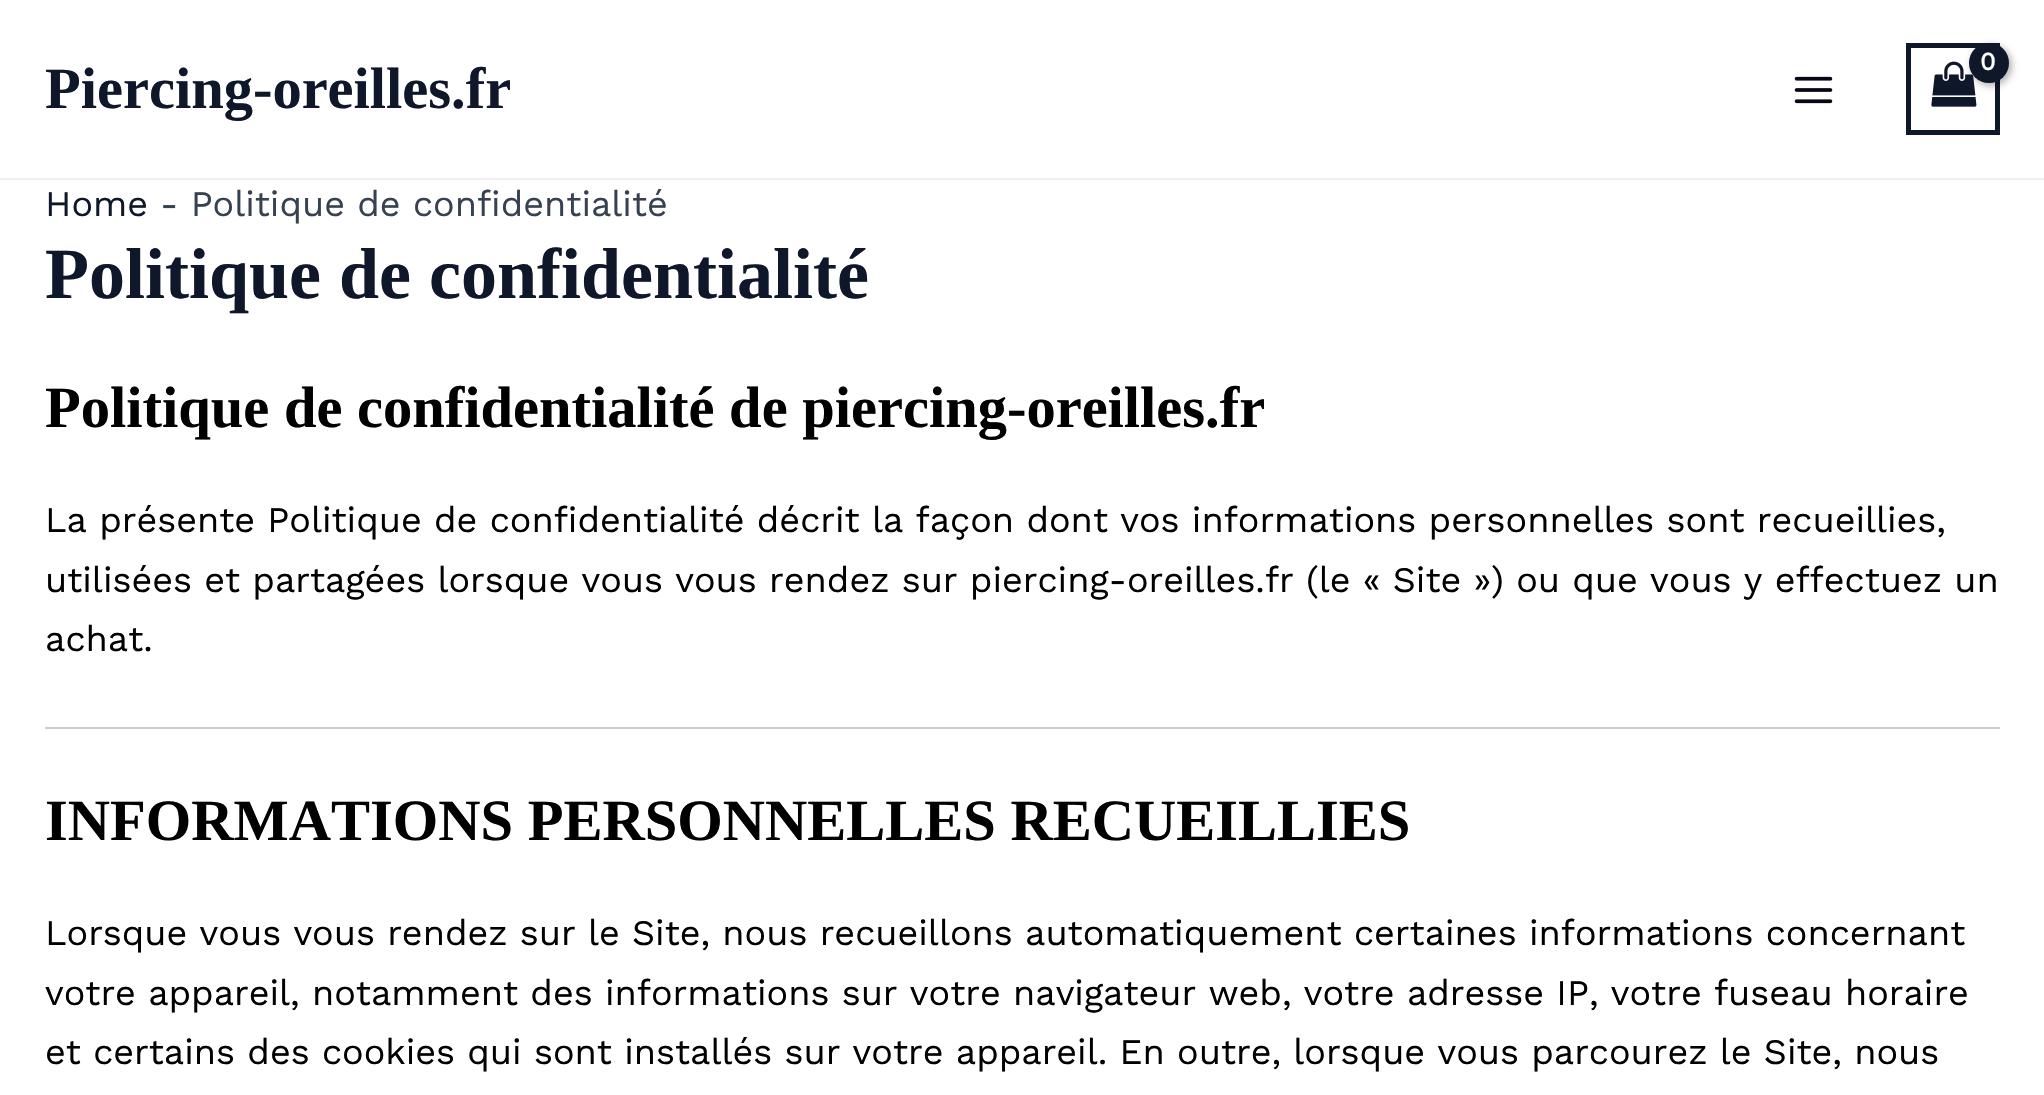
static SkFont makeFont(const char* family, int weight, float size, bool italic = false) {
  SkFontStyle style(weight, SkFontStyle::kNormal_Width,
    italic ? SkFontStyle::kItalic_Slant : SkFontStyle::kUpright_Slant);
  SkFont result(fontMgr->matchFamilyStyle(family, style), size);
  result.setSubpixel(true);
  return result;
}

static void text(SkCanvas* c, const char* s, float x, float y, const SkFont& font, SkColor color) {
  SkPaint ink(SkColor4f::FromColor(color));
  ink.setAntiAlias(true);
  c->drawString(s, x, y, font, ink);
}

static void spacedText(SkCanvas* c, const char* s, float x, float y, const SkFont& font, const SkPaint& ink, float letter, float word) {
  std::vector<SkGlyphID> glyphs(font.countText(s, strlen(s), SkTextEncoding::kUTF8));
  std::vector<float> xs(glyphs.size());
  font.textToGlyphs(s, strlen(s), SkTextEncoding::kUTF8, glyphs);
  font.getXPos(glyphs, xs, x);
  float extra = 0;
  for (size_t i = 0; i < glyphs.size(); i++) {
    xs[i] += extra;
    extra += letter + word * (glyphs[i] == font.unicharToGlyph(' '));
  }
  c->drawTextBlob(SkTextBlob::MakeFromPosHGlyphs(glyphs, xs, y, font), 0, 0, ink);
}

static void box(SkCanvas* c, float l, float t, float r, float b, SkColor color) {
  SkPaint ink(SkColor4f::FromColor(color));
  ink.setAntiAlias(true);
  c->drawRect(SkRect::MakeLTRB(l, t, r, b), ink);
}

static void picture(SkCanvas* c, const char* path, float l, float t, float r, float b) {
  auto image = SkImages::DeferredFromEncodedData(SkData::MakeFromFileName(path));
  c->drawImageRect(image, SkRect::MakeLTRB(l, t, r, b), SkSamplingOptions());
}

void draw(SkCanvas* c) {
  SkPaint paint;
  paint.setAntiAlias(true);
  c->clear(0xffffffff);
  box(c, 0, 178, 2044, 180, 0xfff0f0f0);
  paint.setStyle(SkPaint::kStroke_Style);
  paint.setStrokeWidth(5);
  paint.setColor(0xff0f172a);
  c->drawRect(SkRect::MakeLTRB(1908.5f, 45.5f, 1997.5f, 132.5f), paint);
  picture(c, "img_01.png", 1931, 61, 1977, 107);
  paint.setStyle(SkPaint::kFill_Style);
  paint.setColor(0x4d000000);
  paint.setMaskFilter(SkMaskFilter::MakeBlur(kNormal_SkBlurStyle, 3.5f));
  c->drawRoundRect(SkRect::MakeLTRB(1971, 45, 2012, 86), 20.5f, 20.5f, paint);
  paint.setMaskFilter(nullptr);
  paint.setColor(0xff0f172a);
  c->drawCircle(1989, 63, 20, paint);
  SkFont face1 = makeFont("Work Sans", 700, 25);
  paint.setColor(0xffffffff);
  spacedText(c, "0", 1980, 70, face1, paint, -1, 0);
  picture(c, "img_02.png", 1794, 76, 1833, 104);
  SkFont face2 = makeFont("Liberation Serif", 700, 58.5f);
  text(c, "Piercing-oreilles.fr", 45, 108, face2, 0xff0f172a);
  SkFont face3 = makeFont("Work Sans", 400, 36);
  text(c, "Home", 45, 216, face3, 0xff0f172a);
  text(c, "- Politique de confidentialité", 160, 216, face3, 0xff364151);
  SkFont face4 = makeFont("Liberation Serif", 700, 72);
  text(c, "Politique de confidentialité", 45, 298, face4, 0xff0f172a);
  text(c, "Politique de confidentialité de piercing-oreilles.fr", 45, 427, face2, 0xff000000);
  text(c, "La présente Politique de confidentialité décrit la façon dont vos informations personnelles sont recueillies,", 45, 532, face3, 0xff000000);
  text(c, "utilisées et partagées lorsque vous vous rendez sur piercing-oreilles.fr (le « Site ») ou que vous y effectuez un", 45, 592, face3, 0xff000000);
  text(c, "achat.", 45, 651, face3, 0xff000000);
  box(c, 45, 727, 2000, 729, 0xffcccccc);
  text(c, "INFORMATIONS PERSONNELLES RECUEILLIES", 45, 840, face2, 0xff000000);
  text(c, "Lorsque vous vous rendez sur le Site, nous recueillons automatiquement certaines informations concernant", 45, 945, face3, 0xff000000);
  text(c, "votre appareil, notamment des informations sur votre navigateur web, votre adresse IP, votre fuseau horaire", 45, 1005, face3, 0xff000000);
  text(c, "et certains des cookies qui sont installés sur votre appareil. En outre, lorsque vous parcourez le Site, nous", 45, 1064, face3, 0xff000000);
}
